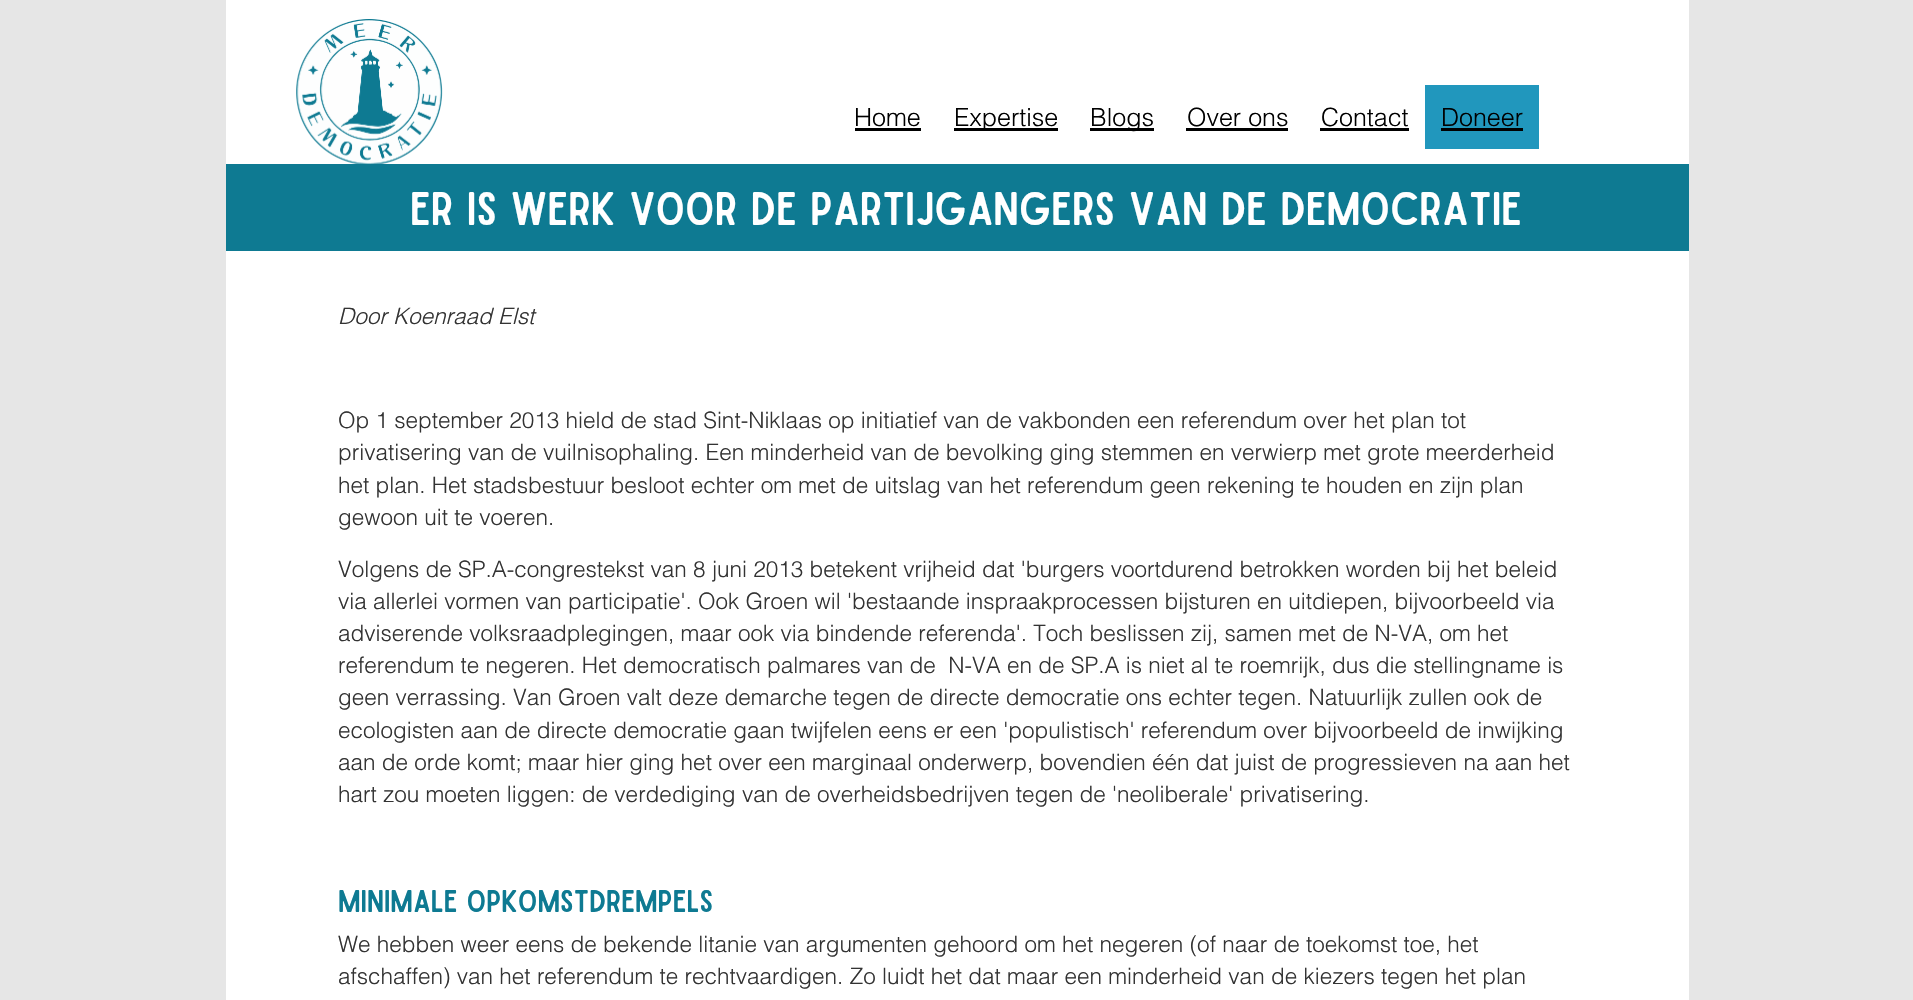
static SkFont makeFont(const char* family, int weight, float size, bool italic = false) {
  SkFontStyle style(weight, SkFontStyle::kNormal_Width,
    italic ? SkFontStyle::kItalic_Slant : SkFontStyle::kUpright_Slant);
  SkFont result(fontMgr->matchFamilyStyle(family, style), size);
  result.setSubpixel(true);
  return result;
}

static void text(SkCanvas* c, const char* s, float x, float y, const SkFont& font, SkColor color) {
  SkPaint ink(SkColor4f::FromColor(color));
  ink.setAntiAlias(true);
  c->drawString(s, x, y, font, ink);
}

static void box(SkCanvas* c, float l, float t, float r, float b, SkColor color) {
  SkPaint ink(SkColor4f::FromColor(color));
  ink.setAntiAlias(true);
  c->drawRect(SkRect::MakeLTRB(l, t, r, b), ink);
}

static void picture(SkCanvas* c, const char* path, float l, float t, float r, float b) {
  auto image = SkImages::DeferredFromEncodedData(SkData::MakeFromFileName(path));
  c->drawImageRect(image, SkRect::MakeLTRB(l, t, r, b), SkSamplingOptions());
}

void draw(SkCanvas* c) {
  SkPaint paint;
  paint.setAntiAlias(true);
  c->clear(0xffe6e6e6);
  box(c, 226, 0, 1689, 151, 0xffffffff);
  box(c, 226, 151, 1689, 164, 0xffffffff);
  picture(c, "img_01.png", 296, 19, 443, 164);
  SkFont face1 = makeFont("Helvetica", 300, 25);
  text(c, "Home", 854, 126, face1, 0xff000000);
  box(c, 855, 128, 921, 131, 0xff000000);
  box(c, 954, 128, 1058, 131, 0xff000000);
  text(c, "Expertise", 954, 126, face1, 0xff000000);
  box(c, 1090, 128, 1154, 131, 0xff000000);
  text(c, "Blogs", 1090, 126, face1, 0xff000000);
  text(c, "Over ons", 1187, 126, face1, 0xff000000);
  box(c, 1186, 128, 1288, 131, 0xff000000);
  text(c, "Contact", 1321, 126, face1, 0xff000000);
  box(c, 1320, 128, 1409, 131, 0xff000000);
  box(c, 1425, 85, 1539, 149, 0xff2197bd);
  text(c, "Doneer", 1441, 126, face1, 0xff000000);
  box(c, 1441, 128, 1523, 131, 0xff000000);
  box(c, 226, 164, 1689, 251, 0xff0e7a92);
  SkFont face2 = makeFont("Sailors", 400, 45);
  text(c, "Er is werk voor de partijgangers van de democratie", 410, 225, face2, 0xffffffff);
  box(c, 226, 251, 1689, 1000, 0xffffffff);
  SkFont face3 = makeFont("Helvetica", 300, 22.5f, true);
  text(c, "Door Koenraad Elst", 338, 324, face3, 0xff333333);
  SkFont face4 = makeFont("Helvetica", 300, 22.5f);
  text(c, "Op 1 september 2013 hield de stad Sint-Niklaas op initiatief van de vakbonden een referendum over het plan tot", 338, 428, face4, 0xff333333);
  text(c, "privatisering van de vuilnisophaling. Een minderheid van de bevolking ging stemmen en verwierp met grote meerderheid", 338, 460, face4, 0xff333333);
  text(c, "het plan. Het stadsbestuur besloot echter om met de uitslag van het referendum geen rekening te houden en zijn plan", 338, 493, face4, 0xff333333);
  text(c, "gewoon uit te voeren.", 338, 525, face4, 0xff333333);
  text(c, "Volgens de SP.A-congrestekst van 8 juni 2013 betekent vrijheid dat 'burgers voortdurend betrokken worden bij het beleid", 338, 577, face4, 0xff333333);
  text(c, "via allerlei vormen van participatie'. Ook Groen wil 'bestaande inspraakprocessen bijsturen en uitdiepen, bijvoorbeeld via", 338, 609, face4, 0xff333333);
  text(c, "adviserende volksraadplegingen, maar ook via bindende referenda'. Toch beslissen zij, samen met de N-VA, om het", 338, 641, face4, 0xff333333);
  text(c, "referendum te negeren. Het democratisch palmares van de  N-VA en de SP.A is niet al te roemrijk, dus die stellingname is", 338, 673, face4, 0xff333333);
  text(c, "geen verrassing. Van Groen valt deze demarche tegen de directe democratie ons echter tegen. Natuurlijk zullen ook de", 338, 705, face4, 0xff333333);
  text(c, "ecologisten aan de directe democratie gaan twijfelen eens er een 'populistisch' referendum over bijvoorbeeld de inwijking", 338, 738, face4, 0xff333333);
  text(c, "aan de orde komt; maar hier ging het over een marginaal onderwerp, bovendien één dat juist de progressieven na aan het", 338, 770, face4, 0xff333333);
  text(c, "hart zou moeten liggen: de verdediging van de overheidsbedrijven tegen de 'neoliberale' privatisering.", 338, 802, face4, 0xff333333);
  SkFont face5 = makeFont("Sailors", 400, 30);
  text(c, "Minimale opkomstdrempels", 338, 912, face5, 0xff0e7a92);
  text(c, "We hebben weer eens de bekende litanie van argumenten gehoord om het negeren (of naar de toekomst toe, het", 338, 952, face4, 0xff333333);
  text(c, "afschaffen) van het referendum te rechtvaardigen. Zo luidt het dat maar een minderheid van de kiezers tegen het plan", 338, 984, face4, 0xff333333);
}
